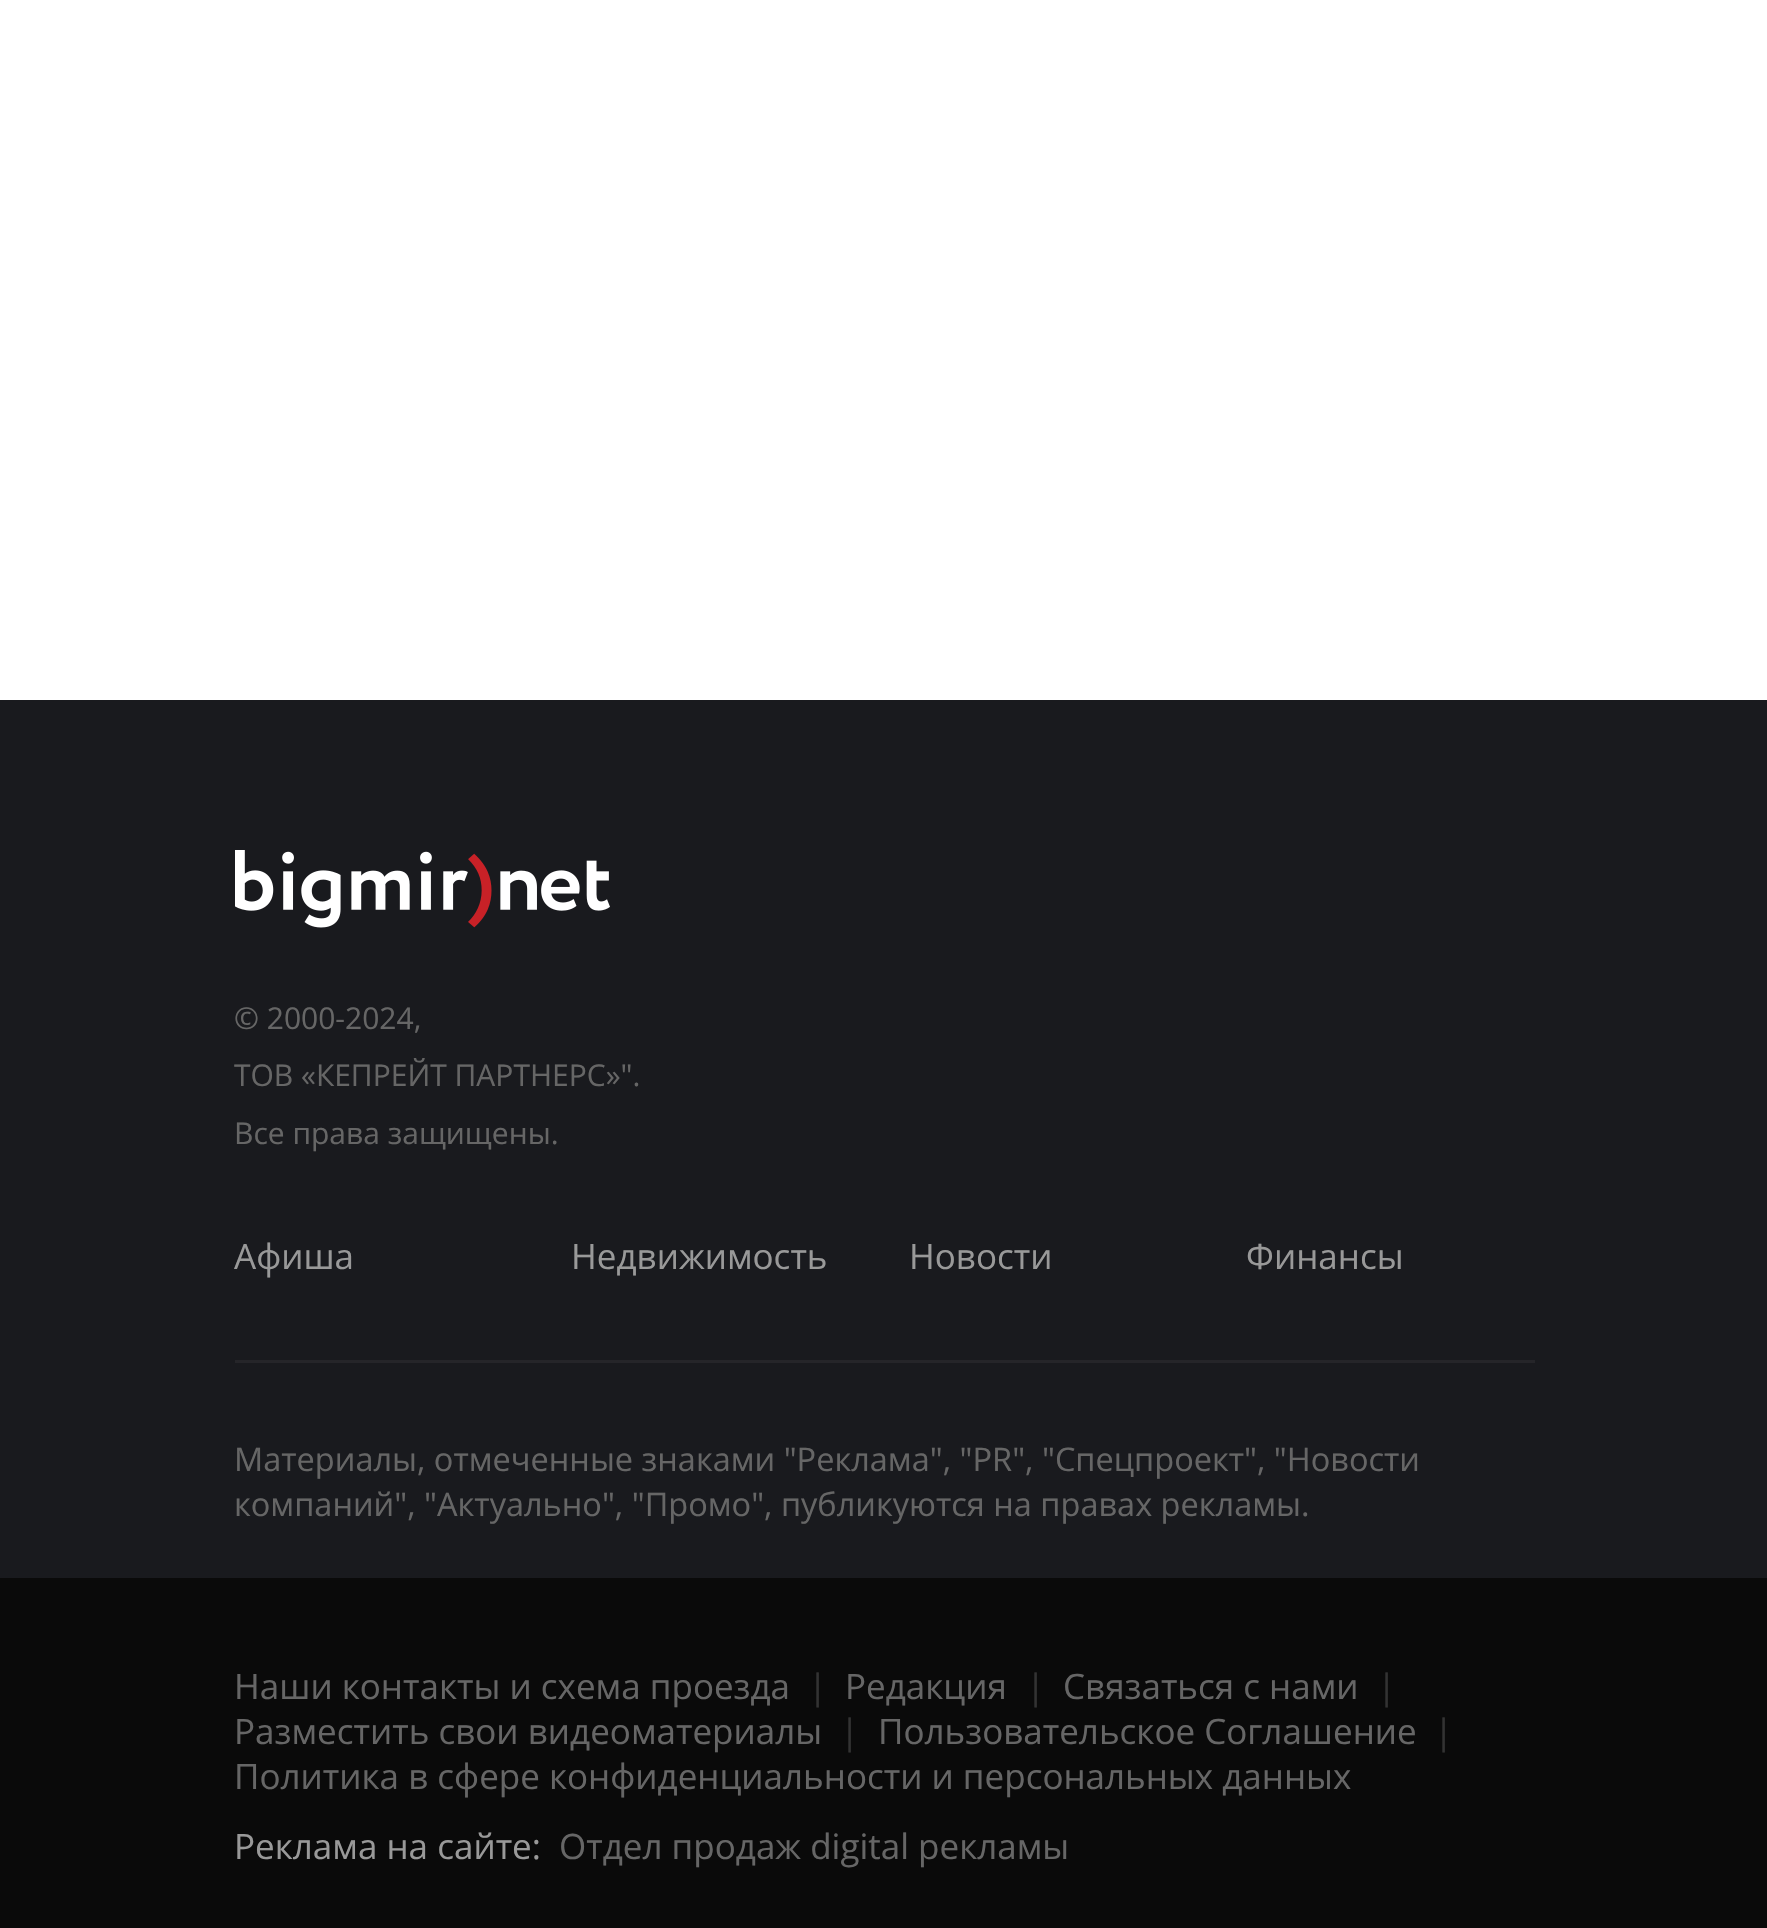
static SkFont makeFont(const char* family, int weight, float size, bool italic = false) {
  SkFontStyle style(weight, SkFontStyle::kNormal_Width,
    italic ? SkFontStyle::kItalic_Slant : SkFontStyle::kUpright_Slant);
  SkFont result(fontMgr->matchFamilyStyle(family, style), size);
  result.setSubpixel(true);
  return result;
}

static void text(SkCanvas* c, const char* s, float x, float y, const SkFont& font, SkColor color) {
  SkPaint ink(SkColor4f::FromColor(color));
  ink.setAntiAlias(true);
  c->drawString(s, x, y, font, ink);
}

static void box(SkCanvas* c, float l, float t, float r, float b, SkColor color) {
  SkPaint ink(SkColor4f::FromColor(color));
  ink.setAntiAlias(true);
  c->drawRect(SkRect::MakeLTRB(l, t, r, b), ink);
}

static void picture(SkCanvas* c, const char* path, float l, float t, float r, float b) {
  auto image = SkImages::DeferredFromEncodedData(SkData::MakeFromFileName(path));
  c->drawImageRect(image, SkRect::MakeLTRB(l, t, r, b), SkSamplingOptions());
}

void draw(SkCanvas* c) {
  SkPaint paint;
  paint.setAntiAlias(true);
  c->clear(0xffffffff);
  box(c, 0, 700, 1767, 1578, 0xff191a1e);
  picture(c, "img_01.png", 235, 850, 610, 928);
  SkFont face1 = makeFont("Open Sans", 400, 30);
  text(c, "© 2000-2024,", 234, 1029, face1, 0xff666666);
  text(c, "ТОВ «КЕПРЕЙТ ПАРТНЕРС»\".", 234, 1086, face1, 0xff666666);
  text(c, "Все права защищены.", 234, 1144, face1, 0xff666666);
  SkFont face2 = makeFont("Open Sans", 400, 35);
  text(c, "Афиша", 234, 1269, face2, 0xff999999);
  text(c, "Недвижимость", 571, 1269, face2, 0xff999999);
  text(c, "Новости", 909, 1269, face2, 0xff999999);
  text(c, "Финансы", 1246, 1269, face2, 0xff999999);
  box(c, 235, 1360, 1535, 1363, 0xff252529);
  SkFont face3 = makeFont("Open Sans", 400, 32.5f);
  text(c, "Материалы, отмеченные знаками \"Реклама\", \"PR\", \"Спецпроект\", \"Новости", 234, 1471, face3, 0xff666666);
  text(c, "компаний\", \"Актуально\", \"Промо\", публикуются на правах рекламы.", 234, 1516, face3, 0xff666666);
  box(c, 0, 1578, 1767, 1928, 0xff0a0a0a);
  text(c, "Наши контакты и схема проезда", 234, 1699, face2, 0xff666666);
  text(c, "|", 808, 1699, face2, 0xff333333);
  text(c, "Редакция", 845, 1699, face2, 0xff666666);
  text(c, "|", 1026, 1699, face2, 0xff333333);
  text(c, "Связаться с нами", 1063, 1699, face2, 0xff666666);
  text(c, "|", 1377, 1699, face2, 0xff333333);
  text(c, "Разместить свои видеоматериалы", 234, 1744, face2, 0xff666666);
  text(c, "|", 840, 1744, face2, 0xff333333);
  text(c, "Пользовательское Соглашение", 878, 1744, face2, 0xff666666);
  text(c, "|", 1434, 1744, face2, 0xff333333);
  text(c, "Политика в сфере конфиденциальности и персональных данных", 234, 1789, face2, 0xff666666);
  text(c, "Реклама на сайте:", 234, 1859, face2, 0xff999999);
  text(c, "Отдел продаж digital рекламы", 559, 1859, face2, 0xff666666);
}
